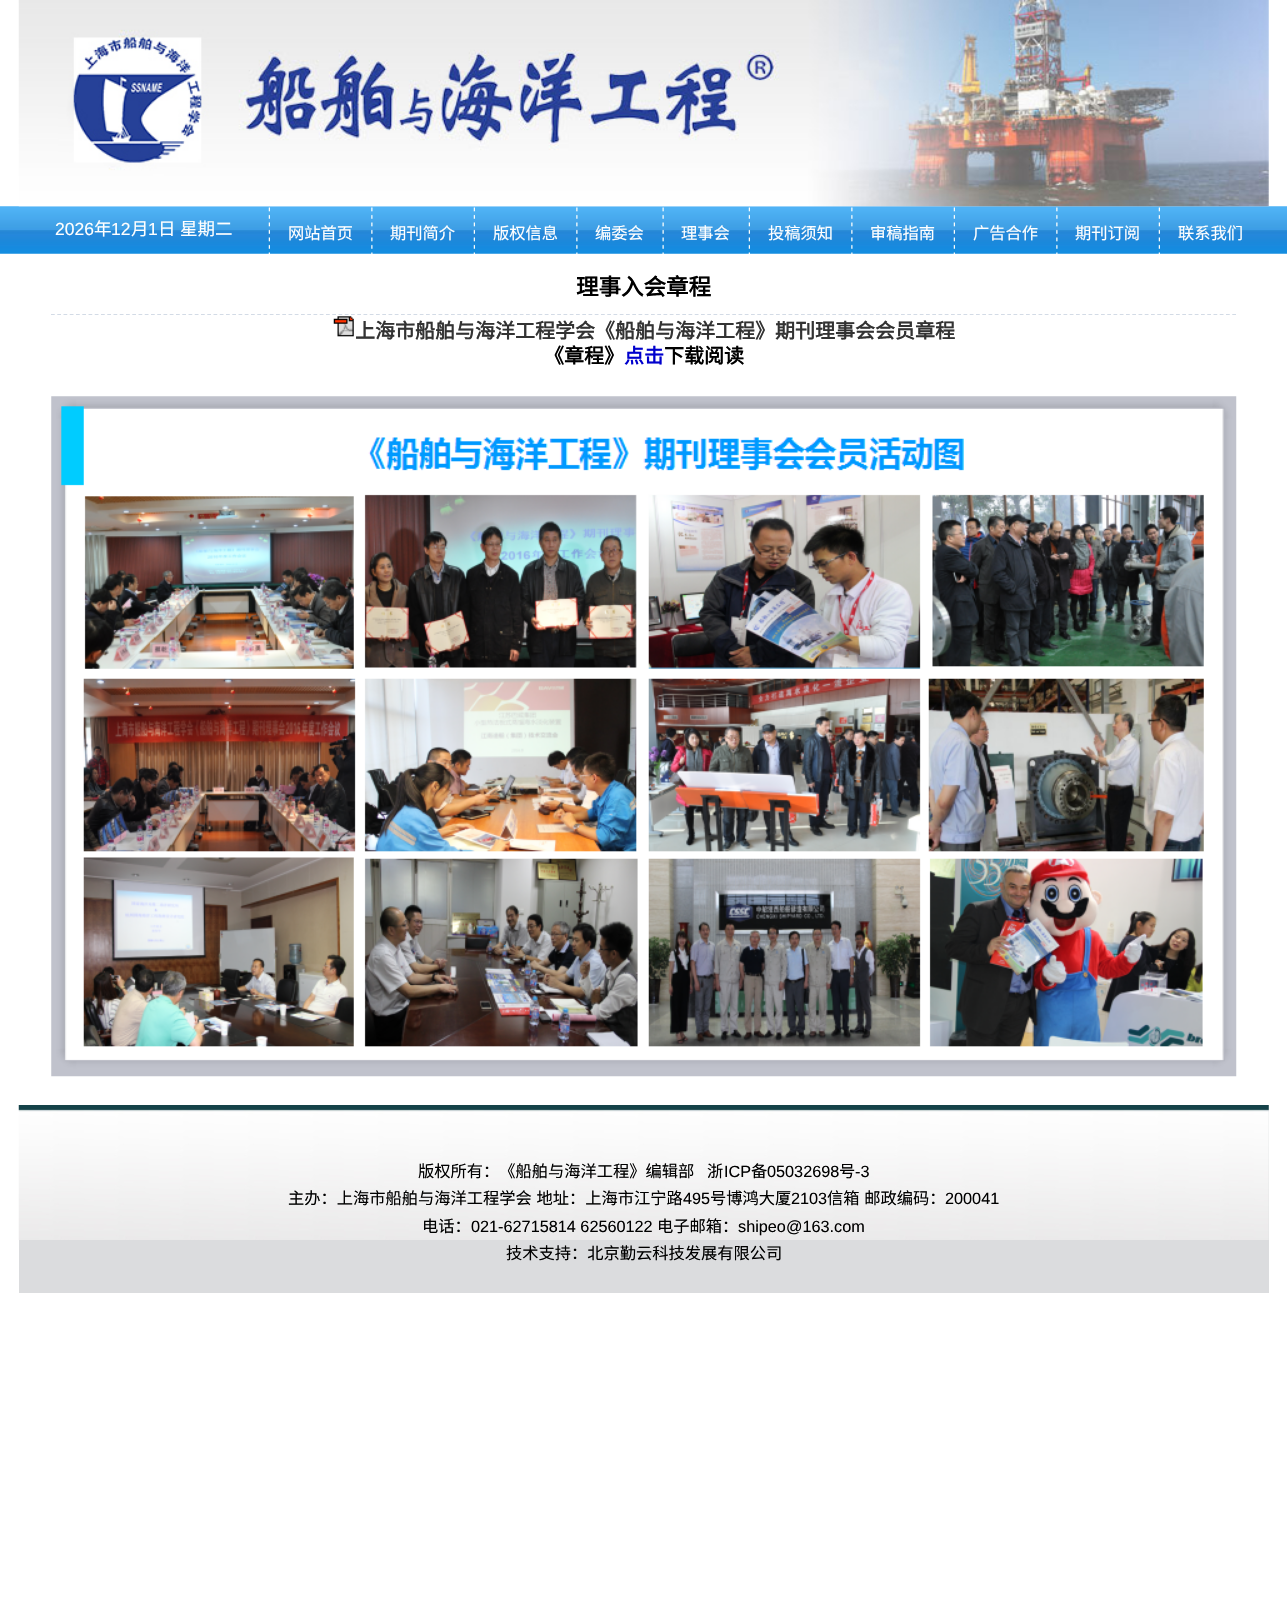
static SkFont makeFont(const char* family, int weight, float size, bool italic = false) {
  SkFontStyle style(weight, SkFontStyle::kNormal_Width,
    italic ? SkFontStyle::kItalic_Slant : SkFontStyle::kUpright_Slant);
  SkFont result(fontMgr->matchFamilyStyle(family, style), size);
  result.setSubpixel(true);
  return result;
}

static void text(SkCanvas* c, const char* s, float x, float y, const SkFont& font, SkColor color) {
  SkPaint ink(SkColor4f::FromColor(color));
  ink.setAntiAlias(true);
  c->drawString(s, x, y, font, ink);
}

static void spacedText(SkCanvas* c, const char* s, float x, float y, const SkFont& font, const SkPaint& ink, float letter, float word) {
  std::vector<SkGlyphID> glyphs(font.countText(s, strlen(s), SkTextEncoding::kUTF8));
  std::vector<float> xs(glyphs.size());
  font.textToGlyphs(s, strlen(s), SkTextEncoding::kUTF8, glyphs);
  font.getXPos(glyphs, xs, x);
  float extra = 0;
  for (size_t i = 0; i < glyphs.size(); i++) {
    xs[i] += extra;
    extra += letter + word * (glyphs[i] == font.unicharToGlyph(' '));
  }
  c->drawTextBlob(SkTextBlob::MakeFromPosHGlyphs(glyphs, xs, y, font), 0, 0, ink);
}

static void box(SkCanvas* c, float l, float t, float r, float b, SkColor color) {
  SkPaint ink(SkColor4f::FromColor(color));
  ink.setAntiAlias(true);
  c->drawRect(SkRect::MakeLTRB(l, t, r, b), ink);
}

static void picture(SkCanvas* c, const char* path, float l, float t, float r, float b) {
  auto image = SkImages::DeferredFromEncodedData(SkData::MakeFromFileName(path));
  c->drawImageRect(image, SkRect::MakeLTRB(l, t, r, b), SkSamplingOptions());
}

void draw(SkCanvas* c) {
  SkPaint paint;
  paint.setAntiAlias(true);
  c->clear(0xffffffff);
  picture(c, "img_02.png", 0, 206, 1287, 254);
  picture(c, "img_01.png", 18, 0, 1269, 207);
  SkFont face1 = makeFont("Liberation Sans", 400, 17.5f);
  text(c, "2026", 55, 235, face1, 0xffffffff);
  SkFont face2 = makeFont("Noto Sans CJK SC", 400, 17.5f);
  text(c, "年", 94, 235, face2, 0xffffffff);
  text(c, "12", 111, 235, face1, 0xffffffff);
  text(c, "月", 131, 235, face2, 0xffffffff);
  text(c, "1", 148, 235, face1, 0xffffffff);
  text(c, "日", 158, 235, face2, 0xffffffff);
  text(c, "星期二", 180, 235, face2, 0xffffffff);
  picture(c, "img_03.png", 268, 207, 270, 254);
  SkFont face3 = makeFont("Noto Sans CJK SC", 400, 16.25f);
  text(c, "网站首页", 288, 239, face3, 0xffffffff);
  picture(c, "img_04.png", 371, 207, 373, 254);
  text(c, "期刊简介", 390, 239, face3, 0xffffffff);
  picture(c, "img_03.png", 473, 207, 475, 254);
  text(c, "版权信息", 493, 239, face3, 0xffffffff);
  picture(c, "img_04.png", 576, 207, 578, 254);
  text(c, "编委会", 595, 239, face3, 0xffffffff);
  picture(c, "img_05.png", 662, 207, 664, 254);
  text(c, "理事会", 681, 239, face3, 0xffffffff);
  picture(c, "img_03.png", 748, 207, 750, 254);
  text(c, "投稿须知", 768, 239, face3, 0xffffffff);
  picture(c, "img_04.png", 851, 207, 853, 254);
  text(c, "审稿指南", 870, 239, face3, 0xffffffff);
  picture(c, "img_03.png", 953, 207, 955, 254);
  text(c, "广告合作", 973, 239, face3, 0xffffffff);
  picture(c, "img_04.png", 1056, 207, 1058, 254);
  text(c, "期刊订阅", 1075, 239, face3, 0xffffffff);
  picture(c, "img_03.png", 1158, 207, 1160, 254);
  text(c, "联系我们", 1178, 239, face3, 0xffffffff);
  SkFont face4 = makeFont("Noto Sans CJK SC", 700, 22.5f);
  text(c, "理事入会章程", 576, 295, face4, 0xff000000);
  paint.setStyle(SkPaint::kStroke_Style);
  paint.setStrokeWidth(1.2f);
  paint.setColor(0xffd3dbe6);
  paint.setPathEffect(SkDashPathEffect::Make({{3.75f, 2.5f}}, 0));
  c->drawPath(SkPathBuilder().moveTo(51, 314.5f).lineTo(1236, 314.5f).detach(), paint);
  paint.setPathEffect(nullptr);
  picture(c, "img_06.png", 333, 315, 354, 337);
  SkFont face5 = makeFont("Noto Sans CJK SC", 700, 20);
  text(c, "上海市船舶与海洋工程学会《船舶与海洋工程》期刊理事会会员章程", 355, 338, face5, 0xff333333);
  text(c, "《章程》", 544, 363, face5, 0xff000000);
  text(c, "点击", 624, 363, face5, 0xff0000cd);
  text(c, "下载阅读", 664, 363, face5, 0xff000000);
  picture(c, "img_07.png", 51, 396, 1237, 1077);
  box(c, 19, 1105, 1269, 1293, 0xffdbdcde);
  picture(c, "img_08.png", 18, 1105, 1269, 1240);
  text(c, "版权所有：《船舶与海洋工程》编辑部", 418, 1177, face3, 0xff000000);
  text(c, "浙", 707, 1177, face3, 0xff000000);
  SkFont face6 = makeFont("Liberation Sans", 400, 16.25f);
  text(c, "ICP", 724, 1177, face6, 0xff000000);
  text(c, "备", 751, 1177, face3, 0xff000000);
  text(c, "05032698", 767, 1177, face6, 0xff000000);
  text(c, "号", 839, 1177, face3, 0xff000000);
  text(c, "-3", 855, 1177, face6, 0xff000000);
  paint.setStyle(SkPaint::kFill_Style);
  paint.setColor(0xff000000);
  spacedText(c, "主办：上海市船舶与海洋工程学会 地址：上海市江宁路", 288, 1204, face3, paint, 0, 1);
  text(c, "495", 683, 1204, face6, 0xff000000);
  text(c, "号博鸿大厦", 710, 1204, face3, 0xff000000);
  text(c, "2103", 791, 1204, face6, 0xff000000);
  spacedText(c, "信箱 邮政编码：", 827, 1204, face3, paint, 0, 1);
  text(c, "200041", 945, 1204, face6, 0xff000000);
  text(c, "电话：", 422, 1232, face3, 0xff000000);
  text(c, "021-62715814 62560122", 471, 1232, face6, 0xff000000);
  text(c, "电子邮箱：", 657, 1232, face3, 0xff000000);
  text(c, "shipeo@163.com", 738, 1232, face6, 0xff000000);
  text(c, "技术支持：北京勤云科技发展有限公司", 506, 1259, face3, 0xff000000);
}
